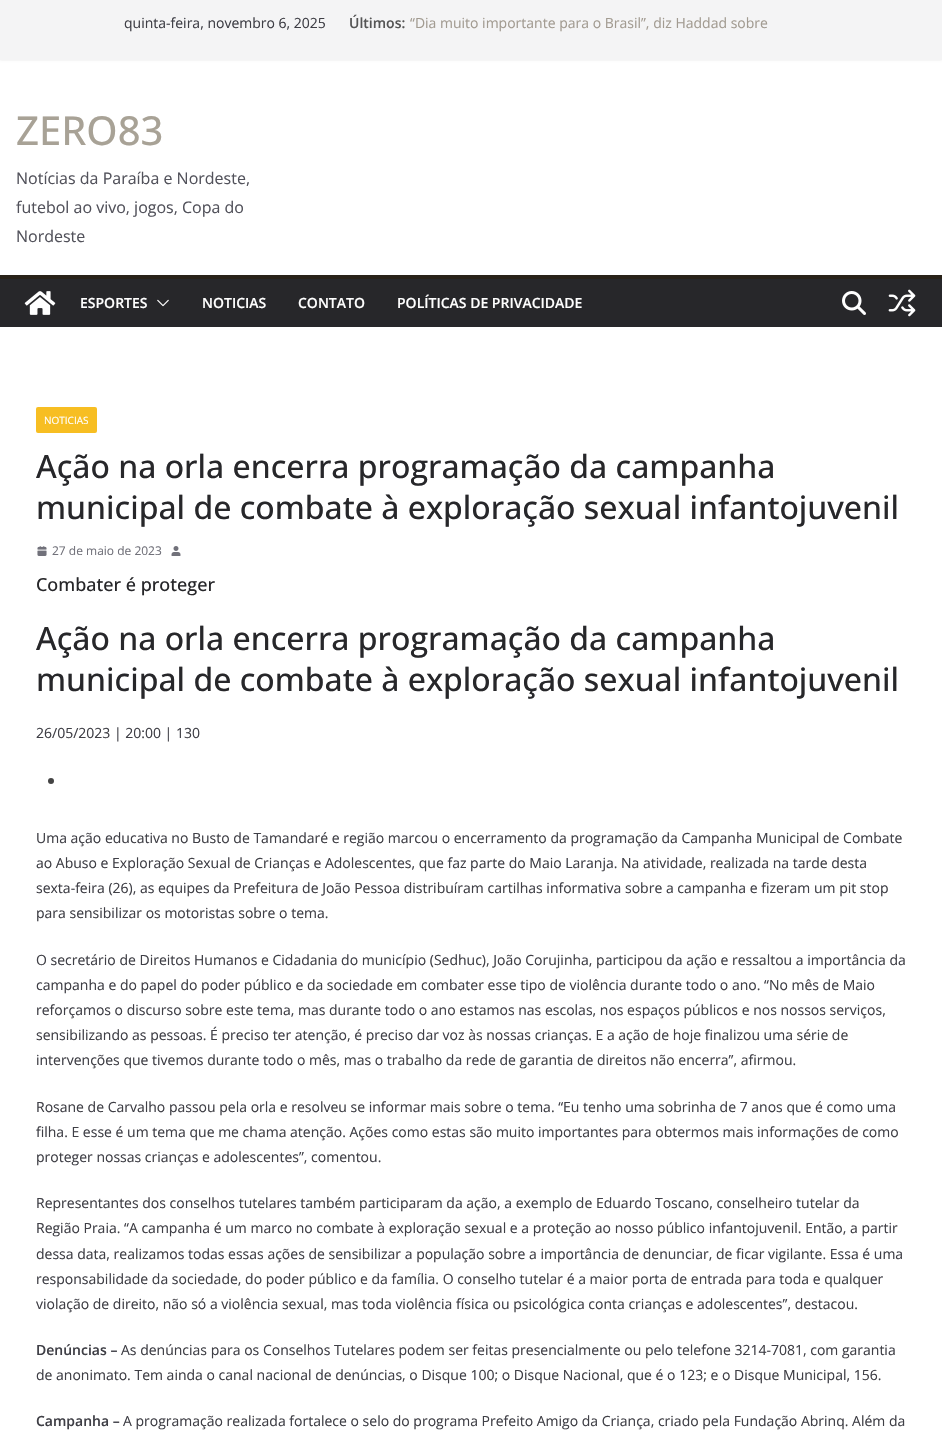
static SkFont makeFont(const char* family, int weight, float size, bool italic = false) {
  SkFontStyle style(weight, SkFontStyle::kNormal_Width,
    italic ? SkFontStyle::kItalic_Slant : SkFontStyle::kUpright_Slant);
  SkFont result(fontMgr->matchFamilyStyle(family, style), size);
  result.setSubpixel(true);
  return result;
}

static void text(SkCanvas* c, const char* s, float x, float y, const SkFont& font, SkColor color) {
  SkPaint ink(SkColor4f::FromColor(color));
  ink.setAntiAlias(true);
  c->drawString(s, x, y, font, ink);
}

static void box(SkCanvas* c, float l, float t, float r, float b, SkColor color) {
  SkPaint ink(SkColor4f::FromColor(color));
  ink.setAntiAlias(true);
  c->drawRect(SkRect::MakeLTRB(l, t, r, b), ink);
}

static void roundBox(SkCanvas* c, float l, float t, float r, float b, float radius, SkColor color) {
  SkPaint ink(SkColor4f::FromColor(color));
  ink.setAntiAlias(true);
  c->drawRoundRect(SkRect::MakeLTRB(l, t, r, b), radius, radius, ink);
}

static void picture(SkCanvas* c, const char* path, float l, float t, float r, float b) {
  auto image = SkImages::DeferredFromEncodedData(SkData::MakeFromFileName(path));
  c->drawImageRect(image, SkRect::MakeLTRB(l, t, r, b), SkSamplingOptions());
}

void draw(SkCanvas* c) {
  SkPaint paint;
  paint.setAntiAlias(true);
  c->clear(0xffffffff);
  paint.setColor(0x1a000000);
  paint.setMaskFilter(SkMaskFilter::MakeBlur(kNormal_SkBlurStyle, 1));
  c->drawRect(SkRect::MakeLTRB(0, 0, 942, 60), paint);
  paint.setMaskFilter(nullptr);
  box(c, 0, 0, 942, 60, 0xfff4f4f5);
  SkFont face1 = makeFont("Open Sans", 400, 14);
  text(c, "quinta-feira, novembro 6, 2025", 124, 28, face1, 0xff3f3f46);
  SkFont face2 = makeFont("Open Sans", 600, 14);
  text(c, "Últimos:", 349, 28, face2, 0xff555555);
  text(c, "“Dia muito importante para o Brasil”, diz Haddad sobre", 410, 28, face1, 0xffa29b91);
  SkFont face3 = makeFont("Open Sans", 500, 40);
  text(c, "ZERO83", 16, 145, face3, 0xffa8a296);
  SkFont face4 = makeFont("Open Sans", 400, 16);
  text(c, "Notícias da Paraíba e Nordeste,", 16, 184, face4, 0xff52525b);
  text(c, "futebol ao vivo, jogos, Copa do", 16, 213, face4, 0xff52525b);
  text(c, "Nordeste", 16, 242, face4, 0xff52525b);
  box(c, 0, 279, 942, 327, 0xff27272a);
  box(c, 0, 275, 942, 279, 0xff292219);
  picture(c, "img_01.png", 24, 291, 56, 315);
  text(c, "ESPORTES", 80, 308, face2, 0xffffffff);
  picture(c, "img_02.png", 157, 299, 169, 307);
  text(c, "NOTICIAS", 202, 308, face2, 0xffffffff);
  text(c, "CONTATO", 298, 308, face2, 0xffffffff);
  text(c, "POLÍTICAS DE PRIVACIDADE", 397, 308, face2, 0xffffffff);
  picture(c, "img_03.png", 842, 291, 866, 315);
  picture(c, "img_04.png", 888, 289, 916, 317);
  roundBox(c, 36, 407, 97, 433, 2, 0xfff7be22);
  SkFont face5 = makeFont("Open Sans", 400, 10);
  text(c, "NOTICIAS", 44, 424, face5, 0xffffffff);
  SkFont face6 = makeFont("Open Sans", 500, 32);
  text(c, "Ação na orla encerra programação da campanha", 36, 478, face6, 0xff27272a);
  text(c, "municipal de combate à exploração sexual infantojuvenil", 36, 519, face6, 0xff27272a);
  picture(c, "img_05.png", 37, 546, 47, 556);
  SkFont face7 = makeFont("Open Sans", 400, 12);
  text(c, "27 de maio de 2023", 52, 555, face7, 0xff71717a);
  picture(c, "img_06.png", 171, 546, 181, 556);
  SkFont face8 = makeFont("Open Sans", 500, 18);
  text(c, "Combater é proteger", 36, 591, face8, 0xff27272a);
  text(c, "Ação na orla encerra programação da campanha", 36, 650, face6, 0xff27272a);
  text(c, "municipal de combate à exploração sexual infantojuvenil", 36, 691, face6, 0xff27272a);
  text(c, "26/05/2023 | 20:00 | 130", 36, 738, face1, 0xff3f3f46);
  paint.setColor(0xff444444);
  c->drawCircle(51, 781, 3, paint);
  text(c, "Uma ação educativa no Busto de Tamandaré e região marcou o encerramento da programação da Campanha Municipal de Combate", 36, 843, face1, 0xff3f3f46);
  text(c, "ao Abuso e Exploração Sexual de Crianças e Adolescentes, que faz parte do Maio Laranja. Na atividade, realizada na tarde desta", 36, 868, face1, 0xff3f3f46);
  text(c, "sexta-feira (26), as equipes da Prefeitura de João Pessoa distribuíram cartilhas informativa sobre a campanha e fizeram um pit stop", 36, 893, face1, 0xff3f3f46);
  text(c, "para sensibilizar os motoristas sobre o tema.", 36, 918, face1, 0xff3f3f46);
  text(c, "O secretário de Direitos Humanos e Cidadania do município (Sedhuc), João Corujinha, participou da ação e ressaltou a importância da", 36, 965, face1, 0xff3f3f46);
  text(c, "campanha e do papel do poder público e da sociedade em combater esse tipo de violência durante todo o ano. “No mês de Maio", 36, 990, face1, 0xff3f3f46);
  text(c, "reforçamos o discurso sobre este tema, mas durante todo o ano estamos nas escolas, nos espaços públicos e nos nossos serviços,", 36, 1015, face1, 0xff3f3f46);
  text(c, "sensibilizando as pessoas. É preciso ter atenção, é preciso dar voz às nossas crianças. E a ação de hoje finalizou uma série de", 36, 1040, face1, 0xff3f3f46);
  text(c, "intervenções que tivemos durante todo o mês, mas o trabalho da rede de garantia de direitos não encerra”, afirmou.", 36, 1065, face1, 0xff3f3f46);
  text(c, "Rosane de Carvalho passou pela orla e resolveu se informar mais sobre o tema. “Eu tenho uma sobrinha de 7 anos que é como uma", 36, 1112, face1, 0xff3f3f46);
  text(c, "filha. E esse é um tema que me chama atenção. Ações como estas são muito importantes para obtermos mais informações de como", 36, 1137, face1, 0xff3f3f46);
  text(c, "proteger nossas crianças e adolescentes”, comentou.", 36, 1162, face1, 0xff3f3f46);
  text(c, "Representantes dos conselhos tutelares também participaram da ação, a exemplo de Eduardo Toscano, conselheiro tutelar da", 36, 1208, face1, 0xff3f3f46);
  text(c, "Região Praia. “A campanha é um marco no combate à exploração sexual e a proteção ao nosso público infantojuvenil. Então, a partir", 36, 1233, face1, 0xff3f3f46);
  text(c, "dessa data, realizamos todas essas ações de sensibilizar a população sobre a importância de denunciar, de ficar vigilante. Essa é uma", 36, 1259, face1, 0xff3f3f46);
  text(c, "responsabilidade da sociedade, do poder público e da família. O conselho tutelar é a maior porta de entrada para toda e qualquer", 36, 1284, face1, 0xff3f3f46);
  text(c, "violação de direito, não só a violência sexual, mas toda violência física ou psicológica conta crianças e adolescentes”, destacou.", 36, 1309, face1, 0xff3f3f46);
  text(c, "Denúncias –", 36, 1355, face2, 0xff3f3f46);
  text(c, "As denúncias para os Conselhos Tutelares podem ser feitas presencialmente ou pelo telefone 3214-7081, com garantia", 121, 1355, face1, 0xff3f3f46);
  text(c, "de anonimato. Tem ainda o canal nacional de denúncias, o Disque 100; o Disque Nacional, que é o 123; e o Disque Municipal, 156.", 36, 1380, face1, 0xff3f3f46);
  text(c, "Campanha –", 36, 1426, face2, 0xff3f3f46);
  text(c, "A programação realizada fortalece o selo do programa Prefeito Amigo da Criança, criado pela Fundação Abrinq. Além da", 123, 1426, face1, 0xff3f3f46);
}
